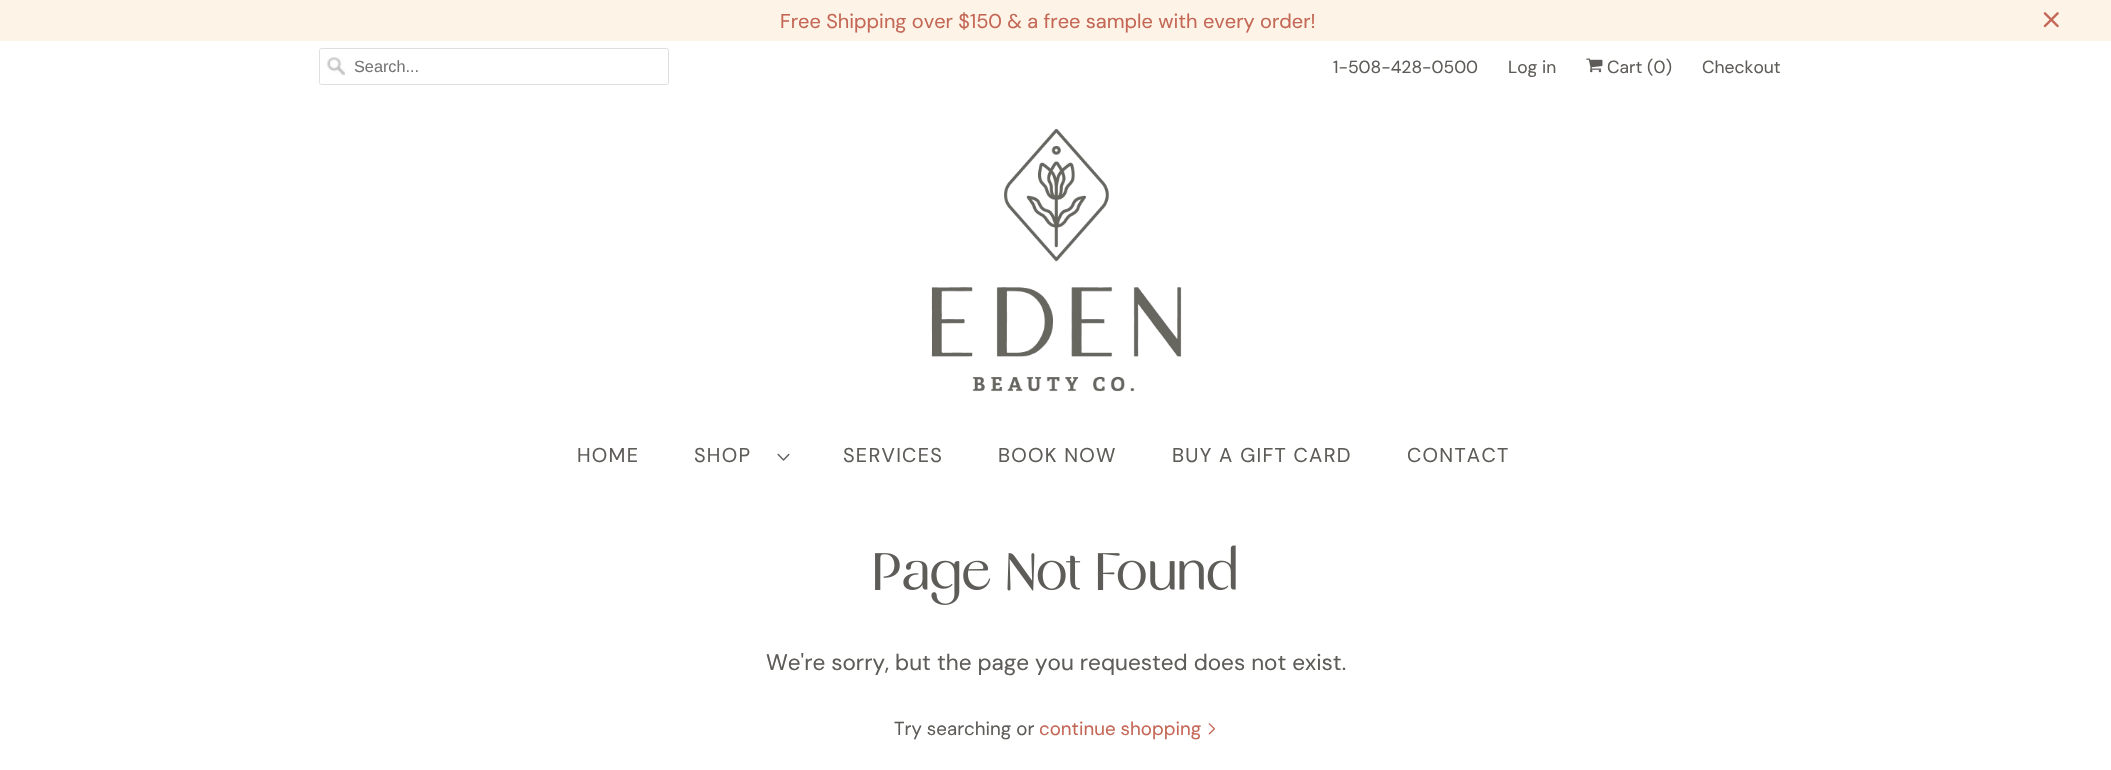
static SkFont makeFont(const char* family, int weight, float size, bool italic = false) {
  SkFontStyle style(weight, SkFontStyle::kNormal_Width,
    italic ? SkFontStyle::kItalic_Slant : SkFontStyle::kUpright_Slant);
  SkFont result(fontMgr->matchFamilyStyle(family, style), size);
  result.setSubpixel(true);
  return result;
}

static void text(SkCanvas* c, const char* s, float x, float y, const SkFont& font, SkColor color) {
  SkPaint ink(SkColor4f::FromColor(color));
  ink.setAntiAlias(true);
  c->drawString(s, x, y, font, ink);
}

static void spacedText(SkCanvas* c, const char* s, float x, float y, const SkFont& font, const SkPaint& ink, float letter, float word) {
  std::vector<SkGlyphID> glyphs(font.countText(s, strlen(s), SkTextEncoding::kUTF8));
  std::vector<float> xs(glyphs.size());
  font.textToGlyphs(s, strlen(s), SkTextEncoding::kUTF8, glyphs);
  font.getXPos(glyphs, xs, x);
  float extra = 0;
  for (size_t i = 0; i < glyphs.size(); i++) {
    xs[i] += extra;
    extra += letter + word * (glyphs[i] == font.unicharToGlyph(' '));
  }
  c->drawTextBlob(SkTextBlob::MakeFromPosHGlyphs(glyphs, xs, y, font), 0, 0, ink);
}

static void box(SkCanvas* c, float l, float t, float r, float b, SkColor color) {
  SkPaint ink(SkColor4f::FromColor(color));
  ink.setAntiAlias(true);
  c->drawRect(SkRect::MakeLTRB(l, t, r, b), ink);
}

static void picture(SkCanvas* c, const char* path, float l, float t, float r, float b) {
  auto image = SkImages::DeferredFromEncodedData(SkData::MakeFromFileName(path));
  c->drawImageRect(image, SkRect::MakeLTRB(l, t, r, b), SkSamplingOptions());
}

void draw(SkCanvas* c) {
  SkPaint paint;
  paint.setAntiAlias(true);
  c->clear(0xffffffff);
  box(c, 0, 0, 2111, 41, 0xfffdf3e6);
  SkFont face1 = makeFont("DM Sans", 400, 20);
  text(c, "Free Shipping over $150 & a free sample with every order!", 780, 28, face1, 0xffc46756);
  picture(c, "img_01.png", 2043, 12, 2059, 28);
  picture(c, "img_02.png", 327, 57, 345, 75);
  paint.setStyle(SkPaint::kStroke_Style);
  paint.setStrokeWidth(1);
  paint.setColor(0xffdfdfdf);
  c->drawRoundRect(SkRect::MakeLTRB(319.5f, 48.5f, 668.5f, 84.5f), 2, 2, paint);
  SkFont face2 = makeFont("Liberation Sans", 400, 16.25f);
  text(c, "Search...", 354, 72, face2, 0xff757575);
  SkFont face3 = makeFont("DM Sans", 400, 17.5f);
  text(c, "1-508-428-0500", 1333, 73, face3, 0xff5e5c58);
  text(c, "Log in", 1508, 73, face3, 0xff5e5c58);
  picture(c, "img_03.png", 1586, 58, 1603, 73);
  text(c, "Cart (0)", 1607, 73, face3, 0xff5e5c58);
  text(c, "Checkout", 1702, 73, face3, 0xff5e5c58);
  picture(c, "img_04.png", 931, 128, 1182, 392);
  paint.setStyle(SkPaint::kFill_Style);
  paint.setColor(0xff5e5c58);
  spacedText(c, "HOME", 577, 462, face1, paint, 1.25f, 0);
  spacedText(c, "SHOP", 694, 462, face1, paint, 1.25f, 0);
  picture(c, "img_05.png", 777, 453, 790, 461);
  spacedText(c, "SERVICES", 843, 462, face1, paint, 1.25f, 0);
  spacedText(c, "BOOK NOW", 998, 462, face1, paint, 1.25f, 0);
  spacedText(c, "BUY A GIFT CARD", 1172, 462, face1, paint, 1.25f, 0);
  spacedText(c, "CONTACT", 1407, 462, face1, paint, 1.25f, 0);
  picture(c, "img_06.png", 875, 545, 1236, 605);
  SkFont face4 = makeFont("DM Sans", 400, 22.5f);
  text(c, "We're sorry, but the page you requested does not exist.", 766, 670, face4, 0xff5e5c58);
  SkFont face5 = makeFont("DM Sans", 400, 18.75f);
  text(c, "Try searching or", 894, 735, face5, 0xff5e5c58);
  text(c, "continue shopping", 1039, 735, face5, 0xffc46756);
  picture(c, "img_07.png", 1208, 723, 1216, 735);
}
